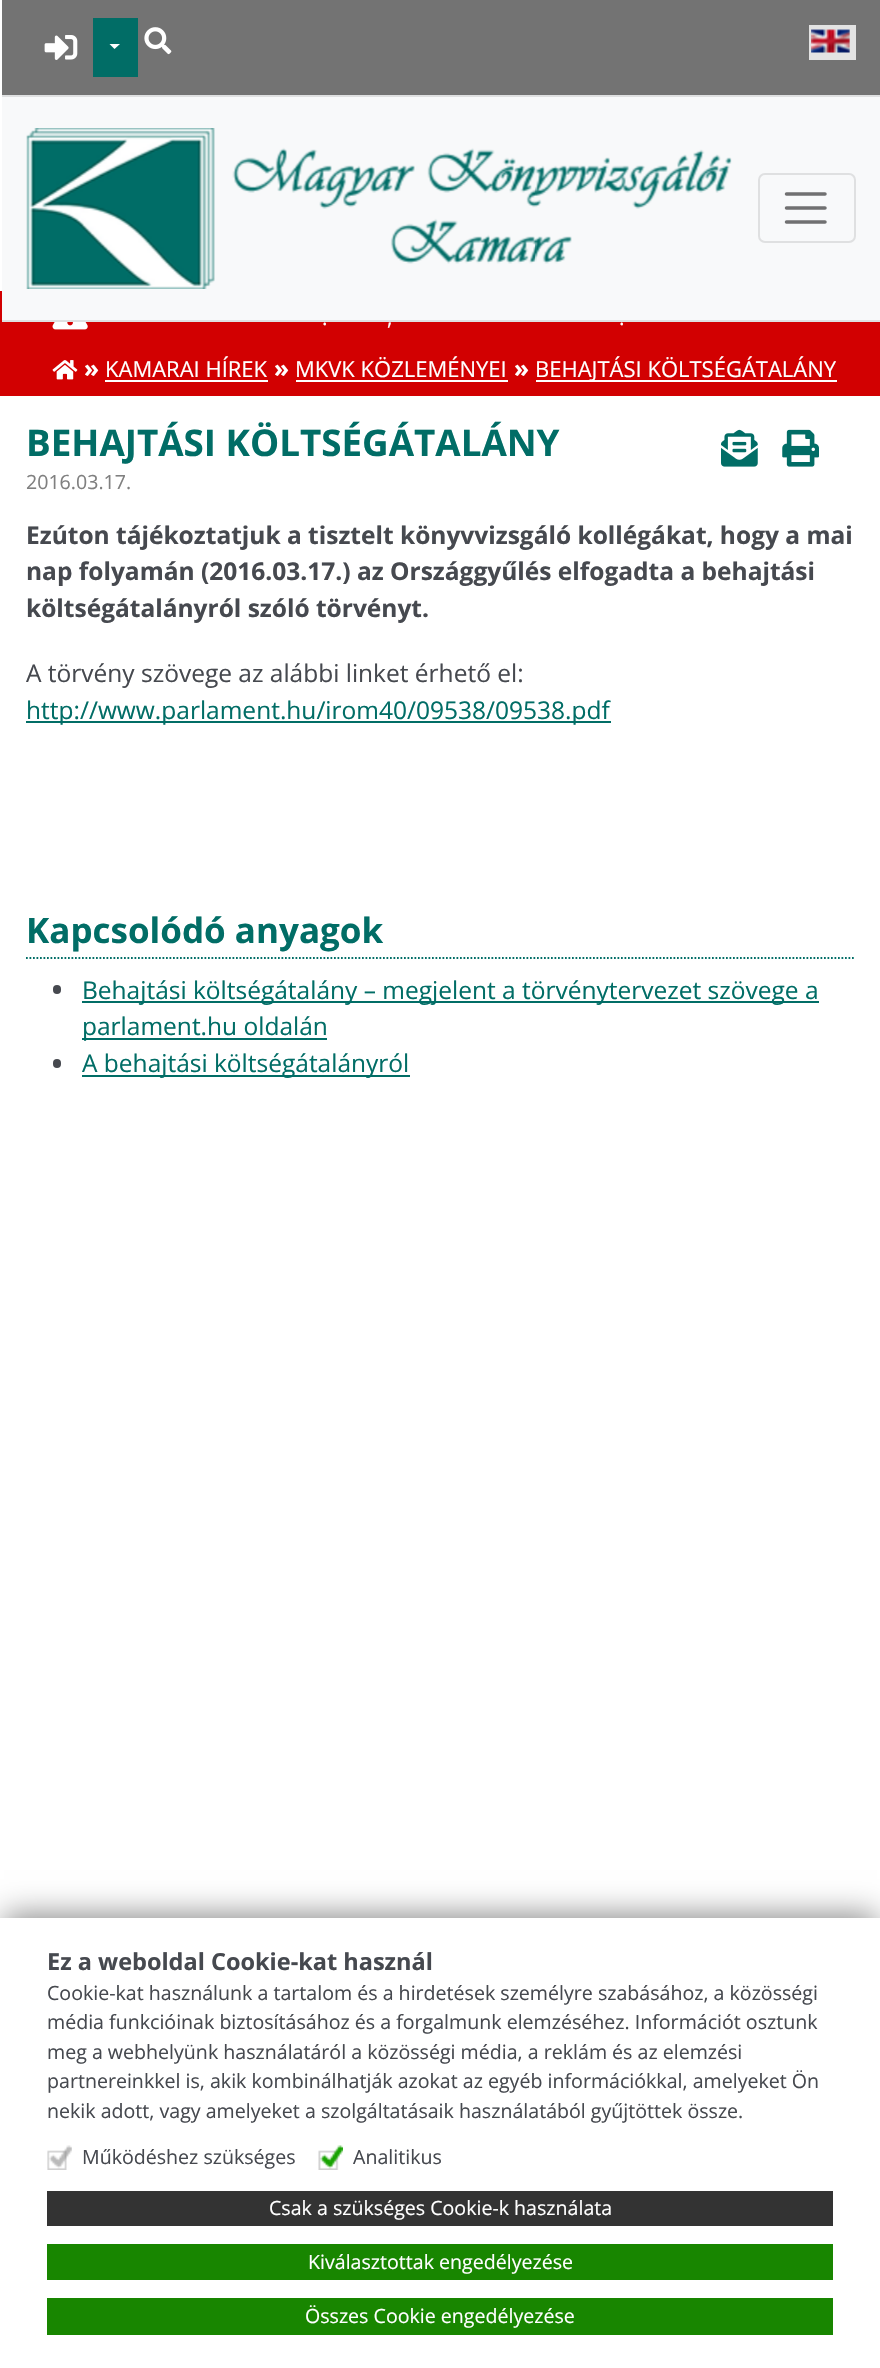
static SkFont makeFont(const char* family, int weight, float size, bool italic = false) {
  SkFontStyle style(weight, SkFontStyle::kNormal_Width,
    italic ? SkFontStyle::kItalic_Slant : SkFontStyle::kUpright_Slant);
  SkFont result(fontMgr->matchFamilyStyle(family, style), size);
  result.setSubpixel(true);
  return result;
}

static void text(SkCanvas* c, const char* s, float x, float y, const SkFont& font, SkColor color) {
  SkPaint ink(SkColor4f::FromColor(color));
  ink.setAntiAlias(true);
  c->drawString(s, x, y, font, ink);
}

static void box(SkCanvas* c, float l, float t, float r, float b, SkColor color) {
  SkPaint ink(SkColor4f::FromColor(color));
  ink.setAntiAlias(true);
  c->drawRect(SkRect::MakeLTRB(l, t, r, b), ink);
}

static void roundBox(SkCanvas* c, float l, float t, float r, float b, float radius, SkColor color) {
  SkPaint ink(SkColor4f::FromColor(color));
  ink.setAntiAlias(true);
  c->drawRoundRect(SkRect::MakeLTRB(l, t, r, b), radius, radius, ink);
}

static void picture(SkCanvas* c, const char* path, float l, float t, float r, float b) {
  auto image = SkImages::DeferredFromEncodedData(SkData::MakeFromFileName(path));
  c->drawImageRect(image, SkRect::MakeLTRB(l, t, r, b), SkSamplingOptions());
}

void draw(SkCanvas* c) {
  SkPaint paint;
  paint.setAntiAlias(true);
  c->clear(0xffffffff);
  box(c, 2, 0, 880, 95, 0xff737373);
  picture(c, "img_01.png", 44, 35, 78, 60);
  box(c, 93, 18, 138, 77, 0xff016d66);
  paint.setColor(0xffffffff);
  c->drawPath(SkPathBuilder().moveTo(109.5f, 44).lineTo(120, 44).lineTo(114.5f, 49).close().detach(), paint);
  picture(c, "img_02.png", 144, 27, 172, 55);
  box(c, 809, 25, 856, 60, 0xffe3e3e3);
  picture(c, "img_03.png", 811, 29, 850, 53);
  box(c, 0, 291, 880, 396, 0xffd20001);
  box(c, 2, 97, 880, 320, 0xfff8f9fa);
  box(c, 2, 95, 880, 97, 0xffdfe0e1);
  box(c, 2, 320, 880, 322, 0xffdfe0e1);
  picture(c, "img_04.png", 26, 128, 732, 289);
  paint.setStyle(SkPaint::kStroke_Style);
  paint.setStrokeWidth(2);
  paint.setColor(0xffdfe0e1);
  c->drawRoundRect(SkRect::MakeLTRB(759, 174, 855, 242), 6, 6, paint);
  paint.setStrokeWidth(3.5f);
  paint.setStrokeCap(SkPaint::kRound_Cap);
  paint.setColor(0xff707071);
  c->drawPath(SkPathBuilder().moveTo(786.5f, 194).lineTo(825, 194).moveTo(786.5f, 208).lineTo(825, 208).moveTo(786.5f, 222).lineTo(825, 222).detach(), paint);
  picture(c, "img_05.png", 52, 322, 88, 330);
  SkFont face1 = makeFont("Open Sans", 400, 21);
  text(c, ".", 322, 325, face1, 0xffffffff);
  text(c, ",", 387, 325, face1, 0xffffffff);
  text(c, ".", 619, 325, face1, 0xffffffff);
  picture(c, "img_06.png", 52, 360, 78, 380);
  SkFont face2 = makeFont("Open Sans", 700, 24.5f);
  text(c, "»", 84, 377, face2, 0xffffffff);
  SkFont face3 = makeFont("Open Sans", 400, 22);
  text(c, "KAMARAI HÍREK", 105, 377, face3, 0xffffffff);
  box(c, 105, 380, 268, 382, 0xffffffff);
  text(c, "»", 274, 377, face2, 0xffffffff);
  text(c, "MKVK KÖZLEMÉNYEI", 295, 377, face3, 0xffffffff);
  box(c, 296, 380, 508, 382, 0xffffffff);
  text(c, "»", 514, 377, face2, 0xffffffff);
  box(c, 536, 380, 837, 382, 0xffffffff);
  text(c, "BEHAJTÁSI KÖLTSÉGÁTALÁNY", 535, 377, face3, 0xffffffff);
  SkFont face4 = makeFont("Open Sans", 700, 36.75f);
  text(c, "BEHAJTÁSI KÖLTSÉGÁTALÁNY", 26, 456, face4, 0xff016d66);
  picture(c, "img_07.png", 721, 429, 758, 467);
  picture(c, "img_08.png", 782, 429, 819, 467);
  SkFont face5 = makeFont("Open Sans", 400, 19.6f);
  text(c, "2016.03.17.", 26, 489, face5, 0xff808080);
  text(c, "Ezúton tájékoztatjuk a tisztelt könyvvizsgáló kollégákat, hogy a mai", 26, 544, face2, 0xff46494f);
  text(c, "nap folyamán (2016.03.17.) az Országgyűlés elfogadta a behajtási", 26, 580, face2, 0xff46494f);
  text(c, "költségátalányról szóló törvényt.", 26, 617, face2, 0xff46494f);
  SkFont face6 = makeFont("Open Sans", 400, 24.5f);
  text(c, "A törvény szövege az alábbi linket érhető el:", 26, 682, face6, 0xff46494f);
  box(c, 26, 721, 611, 723, 0xff016d66);
  text(c, "http://www.parlament.hu/irom40/09538/09538.pdf", 26, 719, face6, 0xff016d66);
  paint.setStrokeWidth(1.8f);
  paint.setStrokeCap(SkPaint::kButt_Cap);
  paint.setColor(0xff016d66);
  paint.setPathEffect(SkDashPathEffect::Make({{1.75f, 1.75f}}, 0));
  c->drawPath(SkPathBuilder().moveTo(26, 958).lineTo(854, 958).detach(), paint);
  paint.setPathEffect(nullptr);
  SkFont face7 = makeFont("Open Sans", 700, 35);
  text(c, "Kapcsolódó anyagok", 26, 943, face7, 0xff016d66);
  roundBox(c, 53, 985, 61, 994, 4, 0xff46494f);
  box(c, 82, 1001, 819, 1003, 0xff016d66);
  text(c, "Behajtási költségátalány – megjelent a törvénytervezet szövege a", 82, 999, face6, 0xff016d66);
  box(c, 82, 1038, 327, 1040, 0xff016d66);
  text(c, "parlament.hu oldalán", 82, 1035, face6, 0xff016d66);
  roundBox(c, 53, 1059, 61, 1068, 4, 0xff46494f);
  box(c, 82, 1075, 410, 1077, 0xff016d66);
  text(c, "A behajtási költségátalányról", 82, 1072, face6, 0xff016d66);
  paint.setStyle(SkPaint::kFill_Style);
  paint.setColor(0x78000000);
  paint.setMaskFilter(SkMaskFilter::MakeBlur(kNormal_SkBlurStyle, 15));
  c->drawRect(SkRect::MakeLTRB(4, 1915, 877, 2359), paint);
  paint.setMaskFilter(nullptr);
  box(c, 0, 1918, 880, 2368, 0xffffffff);
  SkFont face8 = makeFont("Open Sans", 700, 23.5f);
  text(c, "Ez a weboldal Cookie-kat használ", 47, 1970, face8, 0xff46494f);
  text(c, "Cookie-kat használunk a tartalom és a hirdetések személyre szabásához, a közösségi", 47, 2000, face5, 0xff46494f);
  text(c, "média funkcióinak biztosításához és a forgalmunk elemzéséhez. Információt osztunk", 47, 2029, face5, 0xff46494f);
  text(c, "meg a webhelyünk használatáról a közösségi média, a reklám és az elemzési", 47, 2059, face5, 0xff46494f);
  text(c, "partnereinkkel is, akik kombinálhatják azokat az egyéb információkkal, amelyeket Ön", 47, 2088, face5, 0xff46494f);
  text(c, "nekik adott, vagy amelyeket a szolgáltatásaik használatából gyűjtöttek össze.", 47, 2118, face5, 0xff46494f);
  picture(c, "img_09.png", 47, 2145, 72, 2170);
  text(c, "Működéshez szükséges", 82, 2164, face5, 0xff46494f);
  picture(c, "img_10.png", 318, 2145, 343, 2170);
  text(c, "Analitikus", 353, 2164, face5, 0xff46494f);
  box(c, 47, 2191, 833, 2226, 0xff333333);
  text(c, "Csak a szükséges Cookie-k használata", 269, 2215, face5, 0xffffffff);
  box(c, 47, 2244, 833, 2280, 0xff188600);
  text(c, "Kiválasztottak engedélyezése", 308, 2269, face5, 0xffffffff);
  box(c, 47, 2298, 833, 2335, 0xff188600);
  text(c, "Összes Cookie engedélyezése", 305, 2323, face5, 0xffffffff);
}
